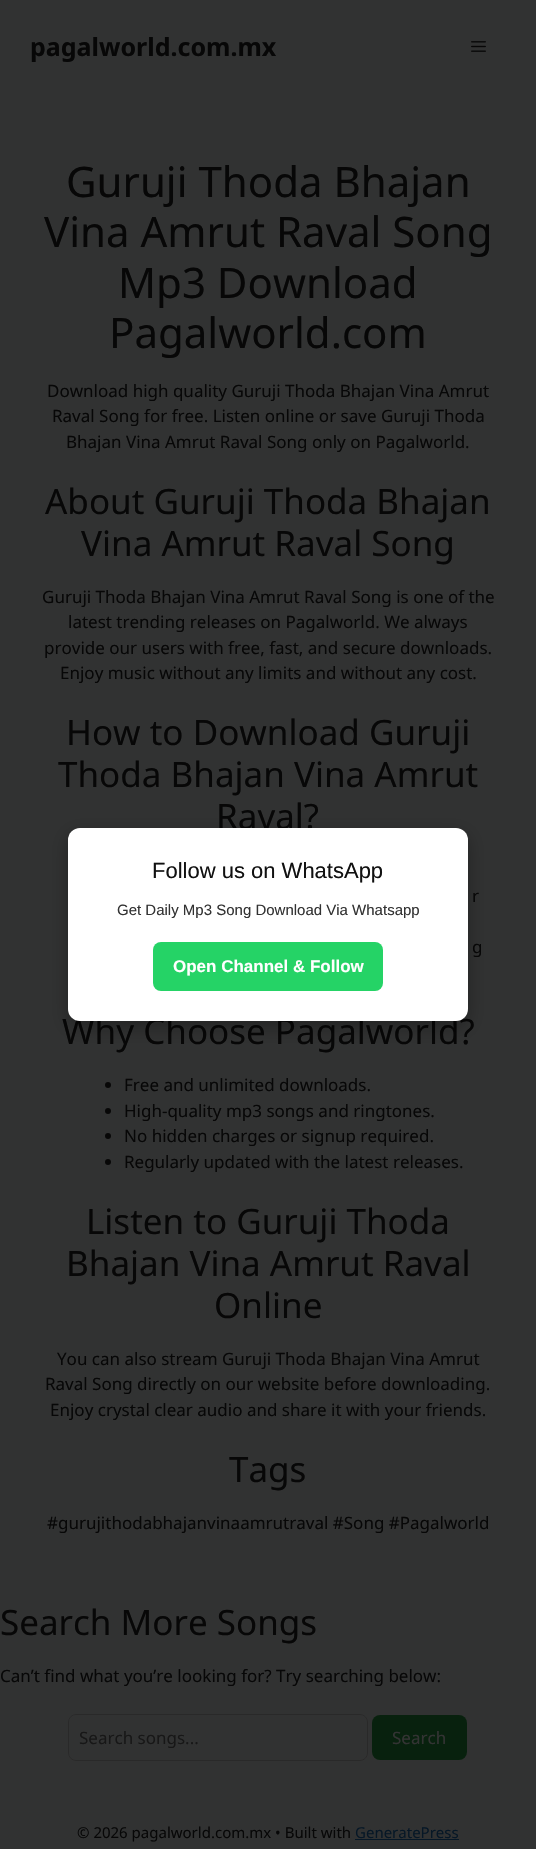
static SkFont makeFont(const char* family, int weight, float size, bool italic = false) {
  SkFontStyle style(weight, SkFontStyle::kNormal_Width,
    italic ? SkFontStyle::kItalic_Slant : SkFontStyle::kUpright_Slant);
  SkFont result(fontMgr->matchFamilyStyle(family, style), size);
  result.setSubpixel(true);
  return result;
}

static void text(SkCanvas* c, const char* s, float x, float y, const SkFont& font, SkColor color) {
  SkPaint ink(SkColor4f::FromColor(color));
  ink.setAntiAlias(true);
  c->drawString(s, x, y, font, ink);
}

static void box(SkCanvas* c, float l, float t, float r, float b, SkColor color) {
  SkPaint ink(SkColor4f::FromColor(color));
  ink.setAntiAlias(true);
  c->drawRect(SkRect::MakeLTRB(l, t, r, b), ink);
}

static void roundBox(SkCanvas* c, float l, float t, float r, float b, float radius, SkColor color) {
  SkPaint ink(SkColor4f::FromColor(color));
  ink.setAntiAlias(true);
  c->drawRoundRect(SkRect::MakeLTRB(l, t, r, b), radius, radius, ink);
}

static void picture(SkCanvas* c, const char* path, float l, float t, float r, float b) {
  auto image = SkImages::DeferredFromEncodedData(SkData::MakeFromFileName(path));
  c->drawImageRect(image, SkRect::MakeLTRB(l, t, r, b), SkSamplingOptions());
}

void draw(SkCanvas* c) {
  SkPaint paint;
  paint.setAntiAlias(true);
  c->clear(0xff313232);
  SkFont face1 = makeFont("Noto Sans", 700, 25);
  text(c, "pagalworld.com.mx", 30, 56, face1, 0xff070707);
  picture(c, "img_01.png", 471, 41, 486, 52);
  SkFont face2 = makeFont("Noto Sans", 400, 42);
  text(c, "Guruji Thoda Bhajan", 66, 197, face2, 0xff070707);
  text(c, "Vina Amrut Raval Song", 44, 247, face2, 0xff070707);
  text(c, "Mp3 Download", 118, 298, face2, 0xff070707);
  text(c, "Pagalworld.com", 109, 348, face2, 0xff070707);
  SkFont face3 = makeFont("Noto Sans", 400, 17);
  text(c, "Download high quality Guruji Thoda Bhajan Vina Amrut", 47, 397, face3, 0xff070707);
  text(c, "Raval Song for free. Listen online or save Guruji Thoda", 52, 422, face3, 0xff070707);
  text(c, "Bhajan Vina Amrut Raval Song only on Pagalworld.", 66, 448, face3, 0xff070707);
  SkFont face4 = makeFont("Noto Sans", 400, 35);
  text(c, "About Guruji Thoda Bhajan", 45, 514, face4, 0xff070707);
  text(c, "Vina Amrut Raval Song", 81, 556, face4, 0xff070707);
  text(c, "Guruji Thoda Bhajan Vina Amrut Raval Song is one of the", 42, 603, face3, 0xff070707);
  text(c, "latest trending releases on Pagalworld. We always", 68, 628, face3, 0xff070707);
  text(c, "provide our users with free, fast, and secure downloads.", 44, 654, face3, 0xff070707);
  text(c, "Enjoy music without any limits and without any cost.", 60, 679, face3, 0xff070707);
  text(c, "How to Download Guruji", 66, 745, face4, 0xff070707);
  text(c, "Thoda Bhajan Vina Amrut", 58, 787, face4, 0xff070707);
  text(c, "Raval?", 216, 829, face4, 0xff070707);
  text(c, "r", 472, 902, face3, 0xff070707);
  text(c, "g", 472, 953, face3, 0xff070707);
  text(c, "Why Choose Pagalworld?", 62, 1044, face4, 0xff070707);
  paint.setColor(0xff070707);
  c->drawCircle(108, 1085, 3, paint);
  text(c, "Free and unlimited downloads.", 124, 1091, face3, 0xff070707);
  c->drawCircle(108, 1111, 3, paint);
  text(c, "High-quality mp3 songs and ringtones.", 124, 1117, face3, 0xff070707);
  c->drawCircle(108, 1136, 3, paint);
  text(c, "No hidden charges or signup required.", 124, 1142, face3, 0xff070707);
  c->drawCircle(108, 1162, 3, paint);
  text(c, "Regularly updated with the latest releases.", 124, 1168, face3, 0xff070707);
  text(c, "Listen to Guruji Thoda", 86, 1234, face4, 0xff070707);
  text(c, "Bhajan Vina Amrut Raval", 66, 1276, face4, 0xff070707);
  text(c, "Online", 214, 1318, face4, 0xff070707);
  text(c, "You can also stream Guruji Thoda Bhajan Vina Amrut", 57, 1365, face3, 0xff070707);
  text(c, "Raval Song directly on our website before downloading.", 45, 1390, face3, 0xff070707);
  text(c, "Enjoy crystal clear audio and share it with your friends.", 50, 1416, face3, 0xff070707);
  text(c, "Tags", 229, 1482, face4, 0xff070707);
  text(c, "#gurujithodabhajanvinaamrutraval #Song #Pagalworld", 47, 1529, face3, 0xff070707);
  text(c, "Search More Songs", 0, 1635, face4, 0xff070707);
  text(c, "Can’t find what you’re looking for? Try searching below:", 0, 1682, face3, 0xff070707);
  paint.setStyle(SkPaint::kStroke_Style);
  paint.setStrokeWidth(1);
  paint.setColor(0xff292929);
  c->drawRoundRect(SkRect::MakeLTRB(68.5f, 1714.5f, 367.5f, 1760.5f), 7.5f, 7.5f, paint);
  text(c, "Search songs...", 79, 1744, face3, 0xff171717);
  roundBox(c, 372, 1715, 467, 1760, 8, 0xff08210e);
  text(c, "Search", 392, 1744, face3, 0xff333333);
  paint.setStyle(SkPaint::kFill_Style);
  paint.setColor(0x4d000000);
  paint.setMaskFilter(SkMaskFilter::MakeBlur(kNormal_SkBlurStyle, 9));
  c->drawRoundRect(SkRect::MakeLTRB(68, 834, 468, 1027), 12, 12, paint);
  paint.setMaskFilter(nullptr);
  roundBox(c, 68, 828, 468, 1021, 12, 0xffffffff);
  SkFont face5 = makeFont("Liberation Sans", 400, 22);
  text(c, "Follow us on WhatsApp", 152, 878, face5, 0xff111111);
  SkFont face6 = makeFont("Liberation Sans", 400, 15);
  text(c, "Get Daily Mp3 Song Download Via Whatsapp", 117, 915, face6, 0xff333333);
  roundBox(c, 153, 942, 383, 991, 8, 0xff25d366);
  SkFont face7 = makeFont("Liberation Sans", 700, 17);
  text(c, "Open Channel & Follow", 173, 972, face7, 0xffffffff);
  SkFont face8 = makeFont("Noto Sans", 400, 15);
  text(c, "© 2026 pagalworld.com.mx • Built with", 77, 1838, face8, 0xff070707);
  text(c, "GeneratePress", 355, 1838, face8, 0xff061726);
  box(c, 355, 1839, 459, 1840, 0xff061726);
}
